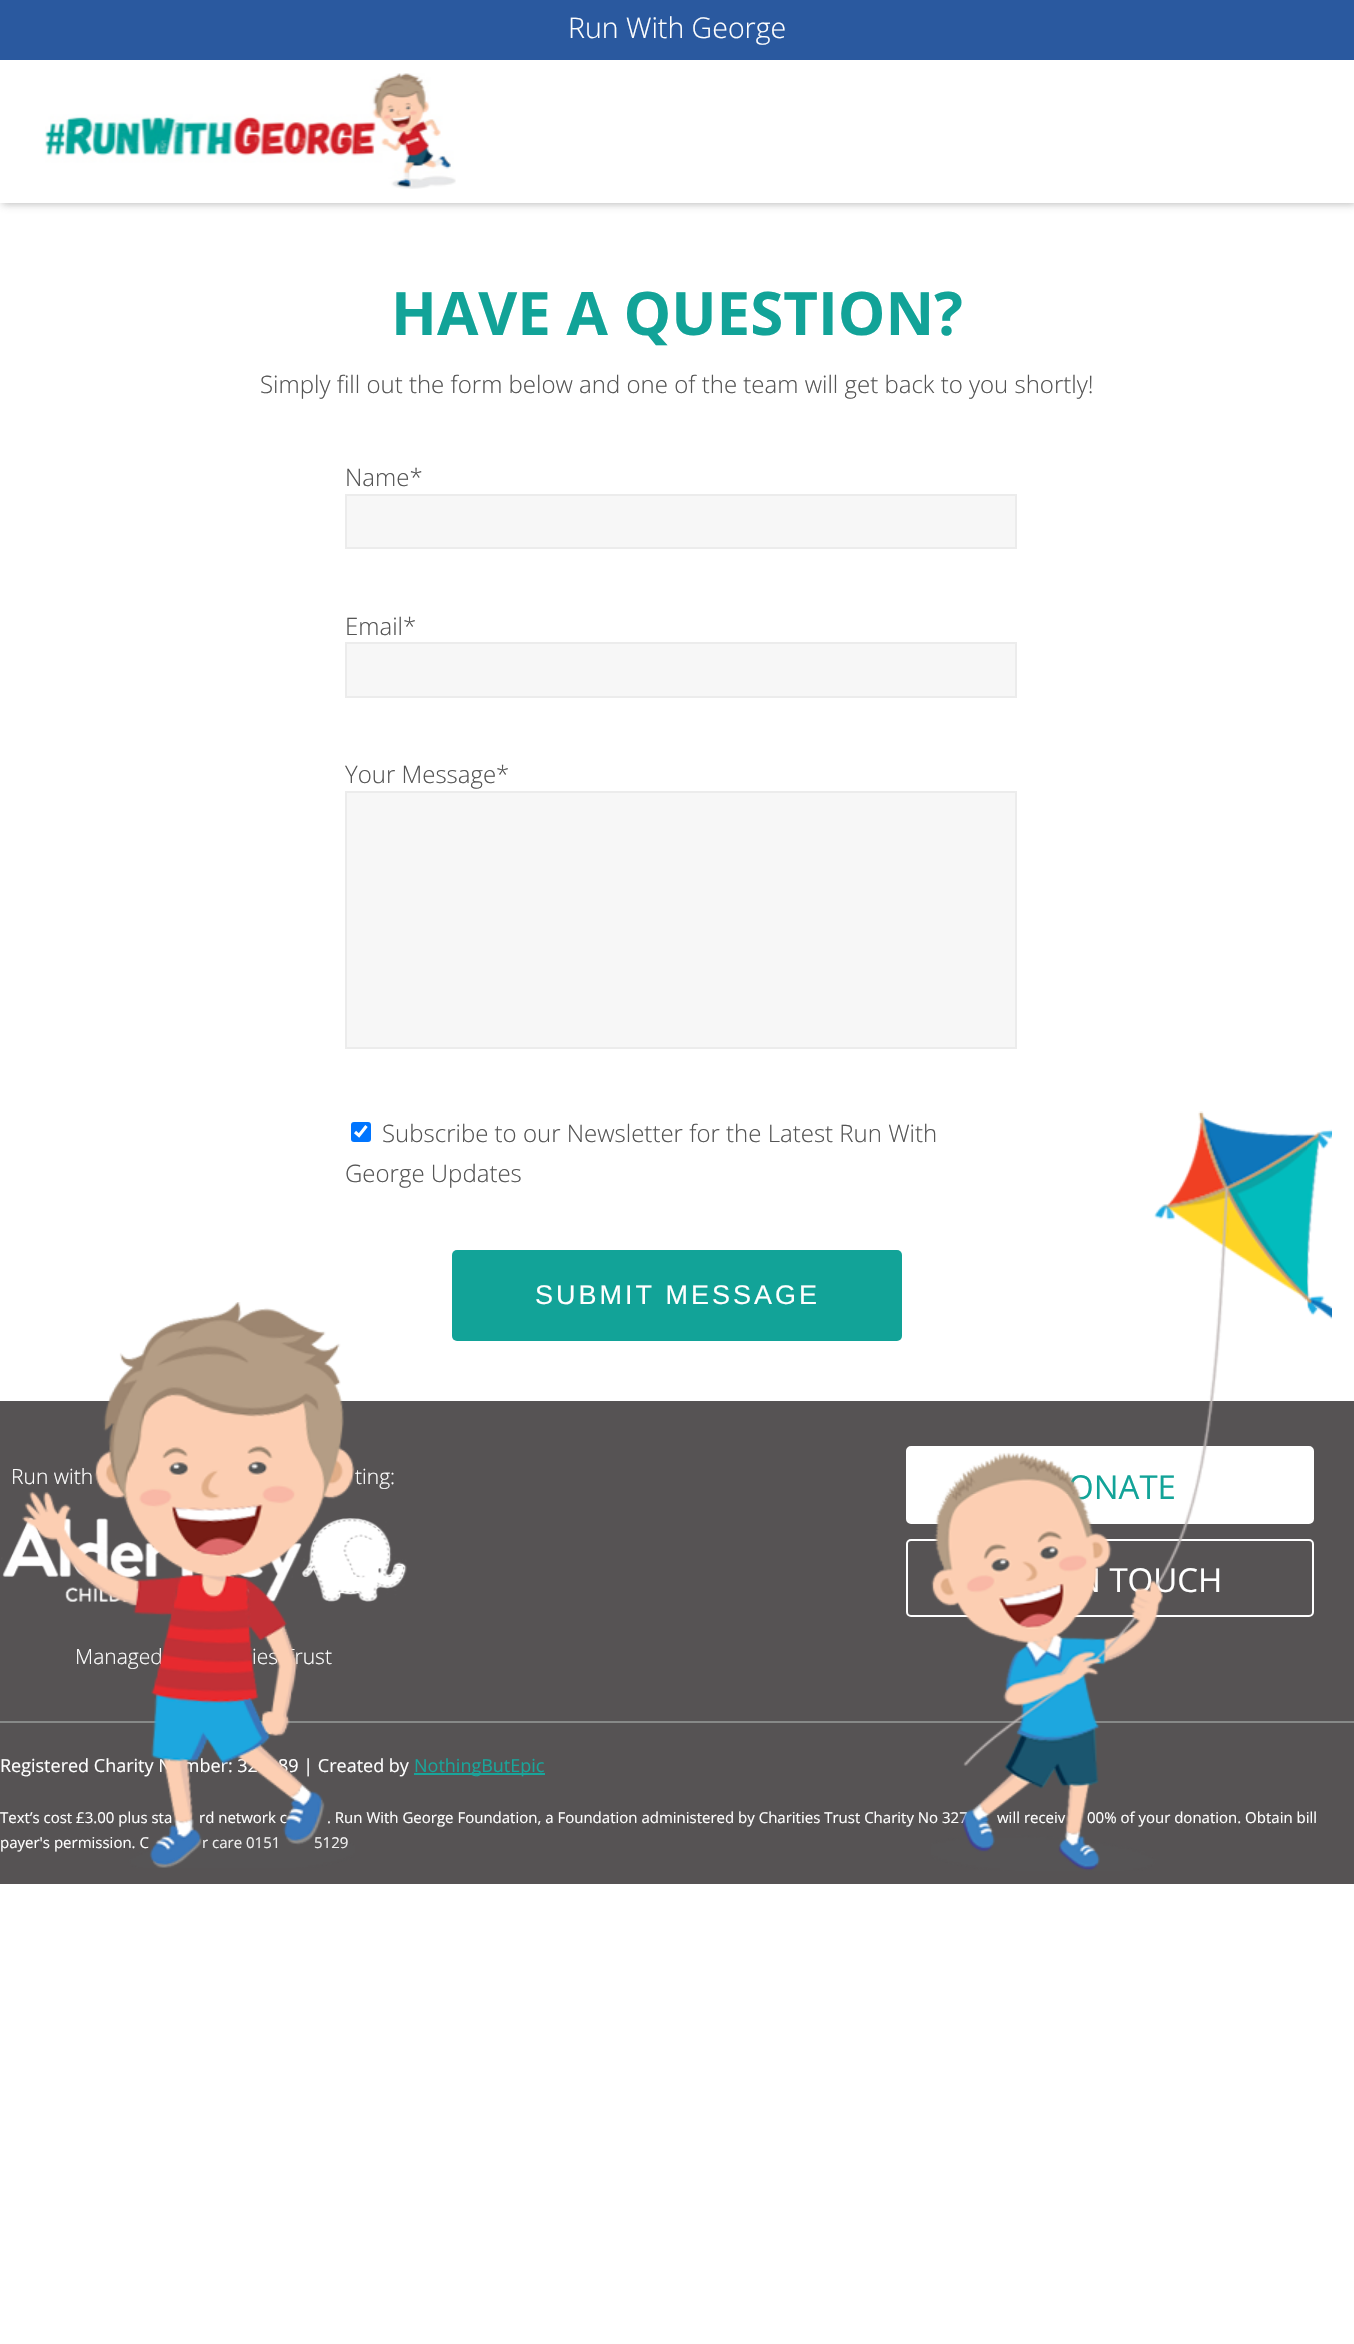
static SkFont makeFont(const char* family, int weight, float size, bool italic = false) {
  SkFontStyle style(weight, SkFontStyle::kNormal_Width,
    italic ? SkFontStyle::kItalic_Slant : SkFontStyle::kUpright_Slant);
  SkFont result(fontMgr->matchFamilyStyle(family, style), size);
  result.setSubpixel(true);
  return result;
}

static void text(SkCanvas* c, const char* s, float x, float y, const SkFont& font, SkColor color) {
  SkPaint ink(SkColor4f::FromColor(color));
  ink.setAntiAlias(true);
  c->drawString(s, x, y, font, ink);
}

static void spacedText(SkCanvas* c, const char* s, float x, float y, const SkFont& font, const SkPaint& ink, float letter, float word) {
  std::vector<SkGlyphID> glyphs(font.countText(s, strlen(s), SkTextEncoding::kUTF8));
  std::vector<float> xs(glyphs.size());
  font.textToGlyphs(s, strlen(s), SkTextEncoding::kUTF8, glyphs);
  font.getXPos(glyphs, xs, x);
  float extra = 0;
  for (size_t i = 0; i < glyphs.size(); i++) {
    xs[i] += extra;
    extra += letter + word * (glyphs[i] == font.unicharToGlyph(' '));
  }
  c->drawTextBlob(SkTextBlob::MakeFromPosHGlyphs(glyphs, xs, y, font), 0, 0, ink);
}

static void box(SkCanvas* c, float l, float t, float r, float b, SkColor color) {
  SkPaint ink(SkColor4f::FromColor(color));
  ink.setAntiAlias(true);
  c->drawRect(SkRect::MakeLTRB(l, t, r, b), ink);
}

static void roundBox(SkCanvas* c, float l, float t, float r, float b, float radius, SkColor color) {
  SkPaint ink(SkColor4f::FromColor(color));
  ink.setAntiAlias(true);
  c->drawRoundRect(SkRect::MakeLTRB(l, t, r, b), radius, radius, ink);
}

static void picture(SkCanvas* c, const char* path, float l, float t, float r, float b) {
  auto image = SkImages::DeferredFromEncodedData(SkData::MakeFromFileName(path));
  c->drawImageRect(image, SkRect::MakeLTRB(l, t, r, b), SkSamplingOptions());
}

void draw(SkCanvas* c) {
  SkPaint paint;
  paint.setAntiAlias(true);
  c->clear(0xffffffff);
  paint.setColor(0x82777777);
  paint.setMaskFilter(SkMaskFilter::MakeBlur(kNormal_SkBlurStyle, 4));
  c->drawRect(SkRect::MakeLTRB(2, 62, 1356, 204), paint);
  paint.setMaskFilter(nullptr);
  box(c, 0, 0, 1354, 60, 0xff2a599f);
  SkFont face1 = makeFont("Open Sans", 300, 28.5f);
  text(c, "Run With George", 568, 38, face1, 0xffffffff);
  box(c, 0, 60, 1354, 203, 0xffffffff);
  picture(c, "img_01.png", 45, 73, 456, 189);
  SkFont face2 = makeFont("Open Sans", 700, 60);
  text(c, "HAVE A QUESTION?", 391, 335, face2, 0xff12a398);
  SkFont face3 = makeFont("Open Sans", 300, 24);
  text(c, "Simply fill out the form below and one of the team will get back to you shortly!", 260, 393, face3, 0xff555555);
  text(c, "Name*", 345, 486, face3, 0xff555555);
  paint.setColor(0xfff7f7f7);
  c->drawRect(SkRect::MakeLTRB(346, 495, 1016, 548), paint);
  paint.setStyle(SkPaint::kStroke_Style);
  paint.setStrokeWidth(2);
  paint.setColor(0xffececec);
  c->drawRect(SkRect::MakeLTRB(346, 495, 1016, 548), paint);
  text(c, "Email*", 345, 635, face3, 0xff555555);
  paint.setStyle(SkPaint::kFill_Style);
  paint.setColor(0xfff7f7f7);
  c->drawRect(SkRect::MakeLTRB(346, 643, 1016, 697), paint);
  paint.setStyle(SkPaint::kStroke_Style);
  paint.setColor(0xffececec);
  c->drawRect(SkRect::MakeLTRB(346, 643, 1016, 697), paint);
  text(c, "Your Message*", 345, 783, face3, 0xff555555);
  paint.setStyle(SkPaint::kFill_Style);
  paint.setColor(0xfff7f7f7);
  c->drawRect(SkRect::MakeLTRB(346, 792, 1016, 1048), paint);
  paint.setStyle(SkPaint::kStroke_Style);
  paint.setColor(0xffececec);
  c->drawRect(SkRect::MakeLTRB(346, 792, 1016, 1048), paint);
  roundBox(c, 351, 1122, 371, 1142, 3, 0xff0075ff);
  paint.setStrokeWidth(3.1f);
  paint.setColor(0xffffffff);
  c->drawPath(SkPathBuilder().moveTo(355, 1132).lineTo(359, 1135.5f).lineTo(366.5f, 1126).detach(), paint);
  text(c, "Subscribe to our Newsletter for the Latest Run With", 382, 1142, face3, 0xff555555);
  text(c, "George Updates", 345, 1182, face3, 0xff555555);
  roundBox(c, 452, 1250, 902, 1341, 5, 0xff12a398);
  SkFont face4 = makeFont("Liberation Sans", 400, 27);
  paint.setStyle(SkPaint::kFill_Style);
  spacedText(c, "SUBMIT MESSAGE", 535, 1304, face4, paint, 3, 0);
  box(c, 0, 1401, 1354, 1884, 0xff565354);
  SkFont face5 = makeFont("Open Sans", 300, 21);
  text(c, "Run with", 11, 1484, face5, 0xffffffff);
  picture(c, "img_04.png", 1, 1517, 407, 1603);
  text(c, "Managed", 75, 1664, face5, 0xffffffff);
  text(c, "ies Trust", 252, 1664, face5, 0xffffffff);
  box(c, 0, 1721, 1354, 1723, 0xff878988);
  SkFont face6 = makeFont("Open Sans", 400, 18);
  text(c, "Registered Charity Number: 32", 0, 1772, face6, 0xffffffff);
  text(c, "89 | Created by", 278, 1772, face6, 0xffffffff);
  SkFont face7 = makeFont("Open Sans", 400, 15);
  text(c, "Text’s cost £3.00 plus sta", 0, 1823, face7, 0xffffffff);
  text(c, "rd network c", 199, 1823, face7, 0xffffffff);
  text(c, ". Run With George Foundation, a Foundation administered by Charities Trust Charity No 327", 327, 1823, face7, 0xffffffff);
  text(c, "payer's permission. C", 0, 1848, face7, 0xffffffff);
  text(c, "r care 0151", 202, 1848, face7, 0xffffffff);
  text(c, "5129", 314, 1848, face7, 0xffffffff);
  picture(c, "img_02.png", 22, 1302, 355, 1868);
  c->drawRoundRect(SkRect::MakeLTRB(907, 1447, 1313, 1523), 4, 4, paint);
  paint.setStyle(SkPaint::kStroke_Style);
  paint.setStrokeWidth(2);
  c->drawRoundRect(SkRect::MakeLTRB(907, 1447, 1313, 1523), 4, 4, paint);
  SkFont face8 = makeFont("Open Sans", 400, 33);
  text(c, "ONATE", 1068, 1499, face8, 0xff12a398);
  c->drawRoundRect(SkRect::MakeLTRB(907, 1540, 1313, 1616), 4, 4, paint);
  text(c, "N TOUCH", 1076, 1592, face8, 0xffffffff);
  text(c, "will receiv", 997, 1823, face7, 0xffffffff);
  text(c, "00% of your donation. Obtain bill", 1087, 1823, face7, 0xffffffff);
  picture(c, "img_03.png", 931, 1111, 1332, 1871);
  text(c, "ting:", 355, 1484, face5, 0xffffffff);
  box(c, 414, 1773, 545, 1775, 0xff19a59b);
  text(c, "NothingButEpic", 414, 1772, face6, 0xff19a59b);
}
